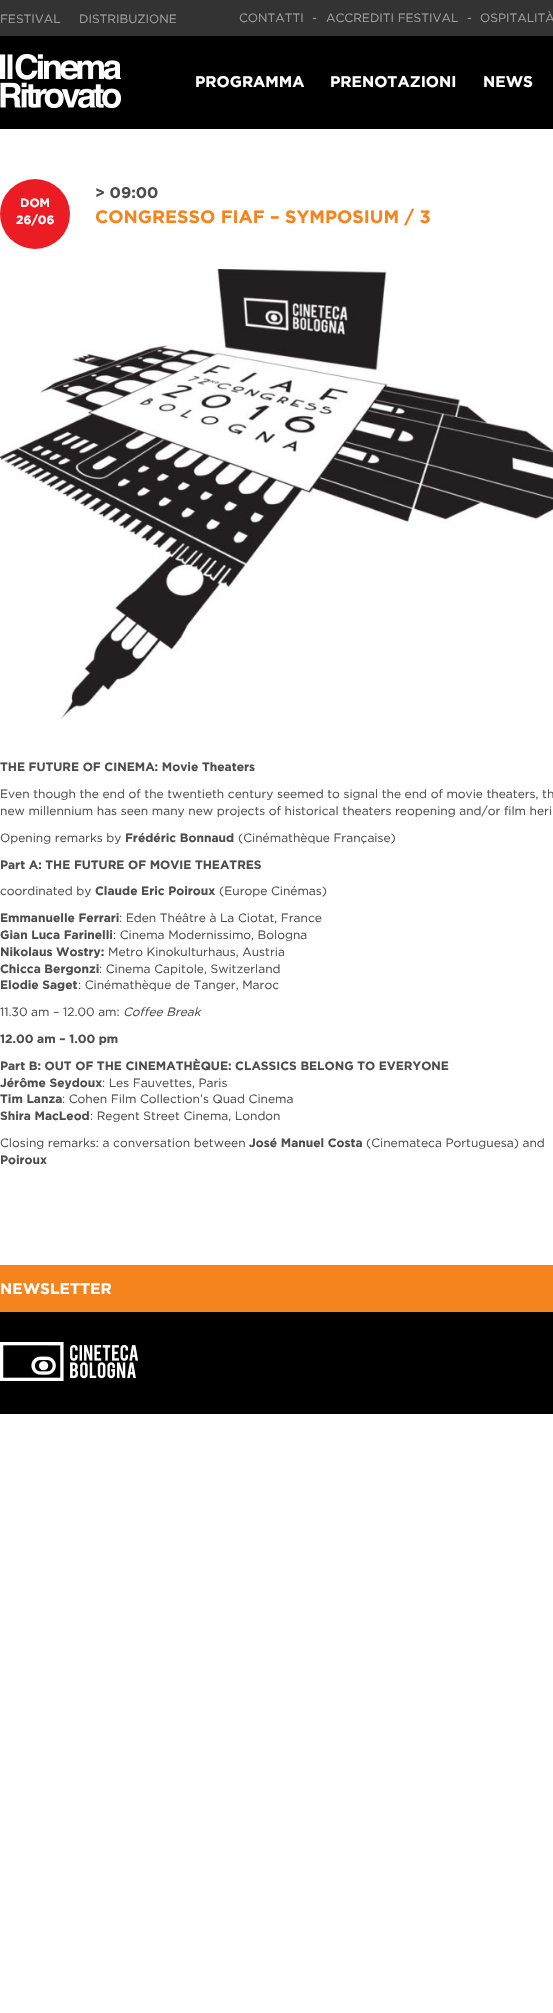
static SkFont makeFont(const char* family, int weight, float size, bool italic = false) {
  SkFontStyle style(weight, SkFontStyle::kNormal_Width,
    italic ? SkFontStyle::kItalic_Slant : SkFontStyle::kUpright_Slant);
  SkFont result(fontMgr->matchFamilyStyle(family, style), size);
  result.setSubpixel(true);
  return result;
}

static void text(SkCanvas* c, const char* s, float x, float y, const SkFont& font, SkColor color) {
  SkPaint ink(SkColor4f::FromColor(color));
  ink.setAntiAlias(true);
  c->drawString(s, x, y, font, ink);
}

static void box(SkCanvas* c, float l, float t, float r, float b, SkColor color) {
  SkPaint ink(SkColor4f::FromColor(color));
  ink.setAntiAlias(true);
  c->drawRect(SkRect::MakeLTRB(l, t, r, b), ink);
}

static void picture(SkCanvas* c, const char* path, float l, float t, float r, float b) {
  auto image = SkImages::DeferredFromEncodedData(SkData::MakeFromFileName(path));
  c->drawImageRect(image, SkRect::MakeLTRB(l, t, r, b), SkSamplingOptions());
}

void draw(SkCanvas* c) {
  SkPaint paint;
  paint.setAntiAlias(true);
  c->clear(0xffffffff);
  box(c, 0, 0, 553, 36, 0xff333333);
  SkFont face1 = makeFont("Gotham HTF", 400, 12);
  text(c, "FESTIVAL", 0, 23, face1, 0xffa0a0a0);
  text(c, "DISTRIBUZIONE", 79, 23, face1, 0xffa0a0a0);
  text(c, "CONTATTI", 239, 22, face1, 0xffa0a0a0);
  text(c, "-", 312, 22, face1, 0xffa0a0a0);
  text(c, "ACCREDITI FESTIVAL", 326, 22, face1, 0xffa0a0a0);
  text(c, "-", 467, 22, face1, 0xffa0a0a0);
  text(c, "OSPITALITÀ", 480, 22, face1, 0xffa0a0a0);
  box(c, 0, 36, 553, 129, 0xff000000);
  picture(c, "img_01.png", 0, 54, 121, 108);
  SkFont face2 = makeFont("Gotham", 700, 15.5f);
  text(c, "PROGRAMMA", 195, 87, face2, 0xffffffff);
  text(c, "PRENOTAZIONI", 330, 87, face2, 0xffffffff);
  text(c, "NEWS", 483, 87, face2, 0xffffffff);
  paint.setColor(0xffec1c24);
  c->drawCircle(35, 214, 35, paint);
  SkFont face3 = makeFont("Gotham", 700, 12);
  text(c, "DOM", 20, 207, face3, 0xffffffff);
  text(c, "26/06", 16, 224, face3, 0xffffffff);
  text(c, "> 09:00", 95, 198, face2, 0xff4d4d4d);
  SkFont face4 = makeFont("Gotham", 700, 18);
  text(c, "CONGRESSO FIAF – SYMPOSIUM / 3", 95, 223, face4, 0xfff6841e);
  picture(c, "img_02.png", 0, 269, 553, 719);
  text(c, "THE FUTURE OF CINEMA: Movie Theaters", 0, 771, face3, 0xff4d4d4d);
  text(c, "Even though the end of the twentieth century seemed to signal the end of movie theaters, th", 0, 798, face1, 0xff4d4d4d);
  text(c, "new millennium has seen many new projects of historical theaters reopening and/or film heri", 0, 815, face1, 0xff4d4d4d);
  text(c, "Opening remarks by", 0, 842, face1, 0xff4d4d4d);
  text(c, "Frédéric Bonnaud", 125, 842, face3, 0xff4d4d4d);
  text(c, "(Cinémathèque Française)", 238, 842, face1, 0xff4d4d4d);
  text(c, "Part A: THE FUTURE OF MOVIE THEATRES", 0, 869, face3, 0xff4d4d4d);
  text(c, "coordinated by", 0, 895, face1, 0xff4d4d4d);
  text(c, "Claude Eric Poiroux", 95, 895, face3, 0xff4d4d4d);
  text(c, "(Europe Cinémas)", 219, 895, face1, 0xff4d4d4d);
  text(c, "Emmanuelle Ferrari", 0, 922, face3, 0xff4d4d4d);
  text(c, ": Eden Théâtre à La Ciotat, France", 119, 922, face1, 0xff4d4d4d);
  text(c, "Gian Luca Farinelli", 0, 939, face3, 0xff4d4d4d);
  text(c, ": Cinema Modernissimo, Bologna", 113, 939, face1, 0xff4d4d4d);
  text(c, "Nikolaus Wostry:", 0, 956, face3, 0xff4d4d4d);
  text(c, "Metro Kinokulturhaus, Austria", 108, 956, face1, 0xff4d4d4d);
  text(c, "Chicca Bergonzi", 0, 973, face3, 0xff4d4d4d);
  text(c, ": Cinema Capitole, Switzerland", 99, 973, face1, 0xff4d4d4d);
  text(c, "Elodie Saget", 0, 989, face3, 0xff4d4d4d);
  text(c, ": Cinémathèque de Tanger, Maroc", 78, 989, face1, 0xff4d4d4d);
  text(c, "11.30 am – 12.00 am:", 0, 1016, face1, 0xff4d4d4d);
  SkFont face5 = makeFont("Gotham HTF", 400, 12, true);
  text(c, "Coffee Break", 123, 1016, face5, 0xff4d4d4d);
  text(c, "12.00 am – 1.00 pm", 0, 1043, face3, 0xff4d4d4d);
  text(c, "Part B: OUT OF THE CINEMATHÈQUE: CLASSICS BELONG TO EVERYONE", 0, 1070, face3, 0xff4d4d4d);
  text(c, "Jérôme Seydoux", 0, 1087, face3, 0xff4d4d4d);
  text(c, ": Les Fauvettes, Paris", 102, 1087, face1, 0xff4d4d4d);
  text(c, "Tim Lanza", 0, 1103, face3, 0xff4d4d4d);
  text(c, ": Cohen Film Collection’s Quad Cinema", 62, 1103, face1, 0xff4d4d4d);
  text(c, "Shira MacLeod", 0, 1120, face3, 0xff4d4d4d);
  text(c, ": Regent Street Cinema, London", 90, 1120, face1, 0xff4d4d4d);
  text(c, "Closing remarks: a conversation between", 0, 1147, face1, 0xff4d4d4d);
  text(c, "José Manuel Costa", 249, 1147, face3, 0xff4d4d4d);
  text(c, "(Cinemateca Portuguesa) and", 366, 1147, face1, 0xff4d4d4d);
  text(c, "Poiroux", 0, 1164, face3, 0xff4d4d4d);
  box(c, 0, 1265, 553, 1312, 0xfff6841e);
  text(c, "NEWSLETTER", 0, 1294, face2, 0xffffffff);
  box(c, 0, 1312, 553, 1414, 0xff000000);
  picture(c, "img_03.png", 0, 1342, 138, 1381);
}
